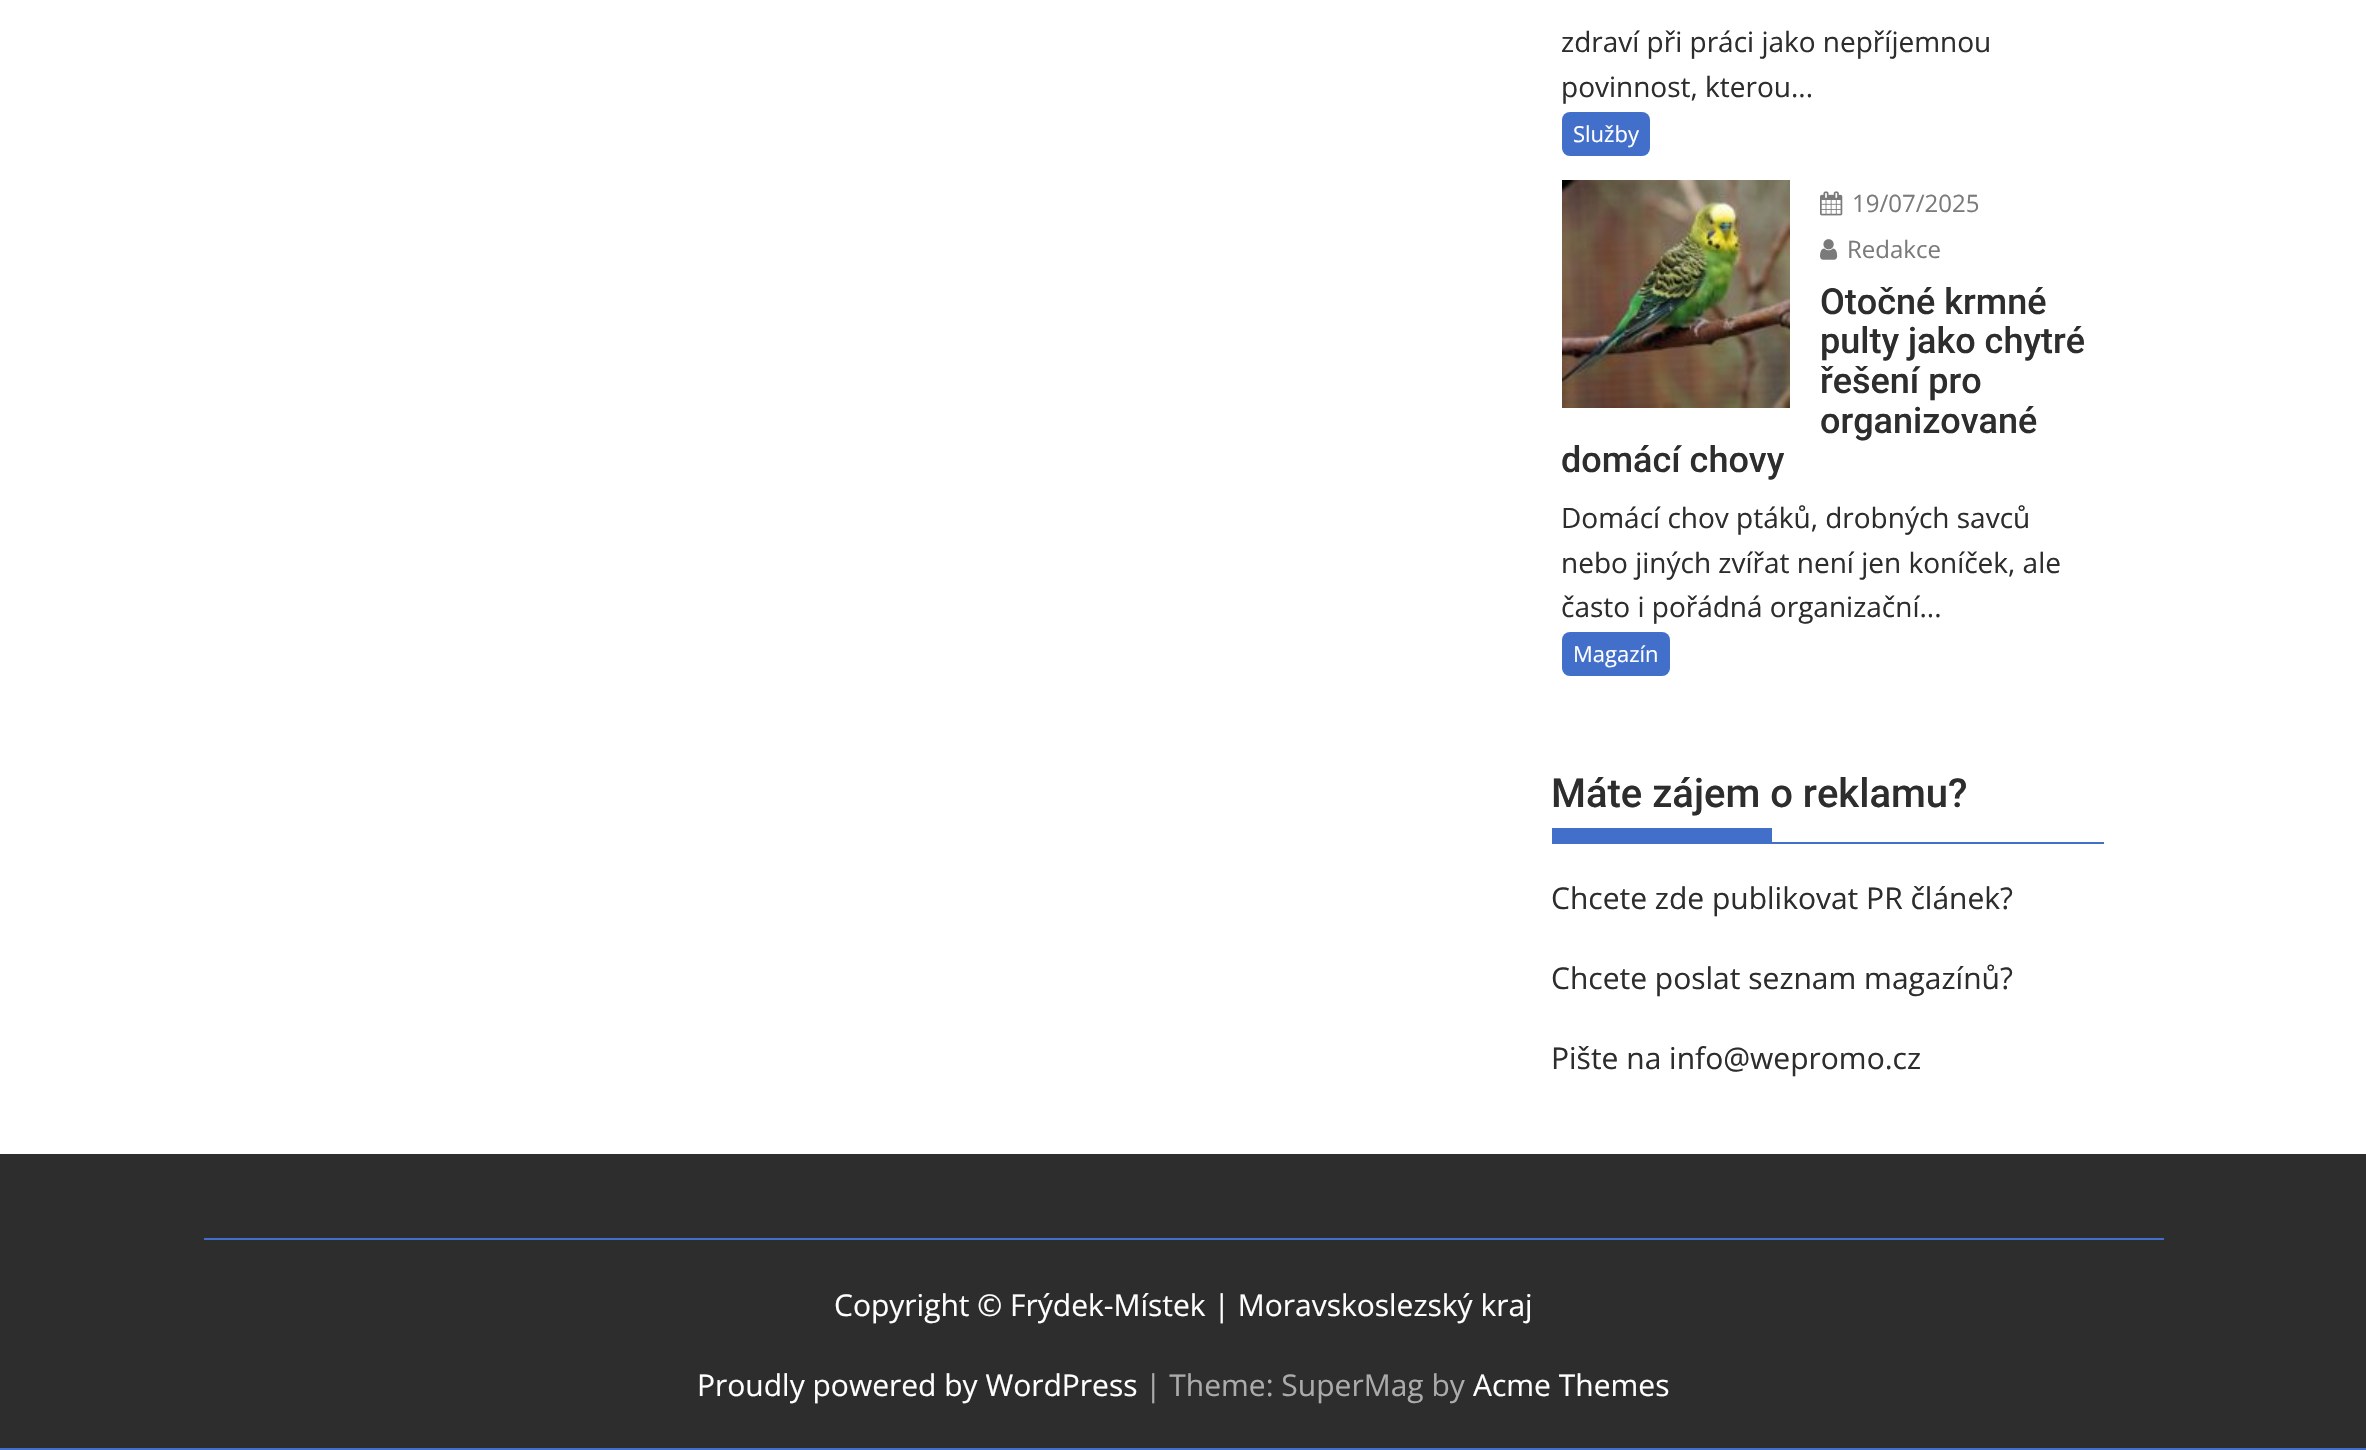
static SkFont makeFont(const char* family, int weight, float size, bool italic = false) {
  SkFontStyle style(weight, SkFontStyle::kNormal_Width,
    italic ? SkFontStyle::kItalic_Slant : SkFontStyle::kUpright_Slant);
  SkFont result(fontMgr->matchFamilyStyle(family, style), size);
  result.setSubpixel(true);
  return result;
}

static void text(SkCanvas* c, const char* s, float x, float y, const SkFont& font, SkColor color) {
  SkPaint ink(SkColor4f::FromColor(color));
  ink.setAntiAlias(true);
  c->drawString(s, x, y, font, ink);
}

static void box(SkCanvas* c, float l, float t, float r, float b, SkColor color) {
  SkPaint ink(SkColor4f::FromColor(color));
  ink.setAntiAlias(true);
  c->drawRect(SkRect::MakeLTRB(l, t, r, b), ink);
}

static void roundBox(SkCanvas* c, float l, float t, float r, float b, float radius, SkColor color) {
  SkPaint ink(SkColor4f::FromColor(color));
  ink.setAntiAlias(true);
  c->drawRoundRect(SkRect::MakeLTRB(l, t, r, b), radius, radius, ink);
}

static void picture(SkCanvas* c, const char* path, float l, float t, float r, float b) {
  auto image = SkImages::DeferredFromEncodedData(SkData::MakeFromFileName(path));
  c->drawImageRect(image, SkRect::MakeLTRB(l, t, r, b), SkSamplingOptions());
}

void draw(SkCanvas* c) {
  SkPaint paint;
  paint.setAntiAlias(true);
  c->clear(0xffffffff);
  SkFont face1 = makeFont("Open Sans", 400, 28);
  text(c, "zdraví při práci jako nepříjemnou", 1561, 52, face1, 0xff2d2d2d);
  text(c, "povinnost, kterou...", 1561, 97, face1, 0xff2d2d2d);
  roundBox(c, 1562, 112, 1650, 156, 8, 0xff426fc9);
  SkFont face2 = makeFont("Open Sans", 400, 22);
  text(c, "Služby", 1573, 142, face2, 0xffffffff);
  picture(c, "img_01.png", 1562, 180, 1790, 408);
  picture(c, "img_02.png", 1820, 191, 1843, 216);
  SkFont face3 = makeFont("Open Sans", 400, 24);
  text(c, "19/07/2025", 1852, 212, face3, 0xff7a7a7a);
  picture(c, "img_03.png", 1820, 239, 1838, 260);
  text(c, "Redakce", 1847, 258, face3, 0xff7a7a7a);
  SkFont face4 = makeFont("Roboto", 500, 36);
  text(c, "Otočné krmné", 1820, 314, face4, 0xff2d2d2d);
  text(c, "pulty jako chytré", 1820, 353, face4, 0xff2d2d2d);
  text(c, "řešení pro", 1820, 393, face4, 0xff2d2d2d);
  text(c, "organizované", 1820, 433, face4, 0xff2d2d2d);
  text(c, "domácí chovy", 1561, 472, face4, 0xff2d2d2d);
  text(c, "Domácí chov ptáků, drobných savců", 1561, 528, face1, 0xff2d2d2d);
  text(c, "nebo jiných zvířat není jen koníček, ale", 1561, 573, face1, 0xff2d2d2d);
  text(c, "často i pořádná organizační...", 1561, 617, face1, 0xff2d2d2d);
  roundBox(c, 1562, 632, 1670, 676, 8, 0xff426fc9);
  text(c, "Magazín", 1573, 662, face2, 0xffffffff);
  box(c, 1552, 842, 2104, 844, 0xff426fc9);
  SkFont face5 = makeFont("Roboto", 500, 40);
  text(c, "Máte zájem o reklamu?", 1551, 807, face5, 0xff2d2d2d);
  box(c, 1552, 828, 1772, 842, 0xff426fc9);
  SkFont face6 = makeFont("Open Sans", 400, 30);
  text(c, "Chcete zde publikovat PR článek?", 1551, 909, face6, 0xff2d2d2d);
  text(c, "Chcete poslat seznam magazínů?", 1551, 989, face6, 0xff2d2d2d);
  text(c, "Pište na info@wepromo.cz", 1551, 1069, face6, 0xff2d2d2d);
  box(c, 0, 1154, 2366, 1448, 0xff2d2d2d);
  box(c, 0, 1448, 2366, 1450, 0xff426fc9);
  box(c, 204, 1238, 2164, 1240, 0xff426fc9);
  text(c, "Copyright © Frýdek-Místek | Moravskoslezský kraj", 834, 1316, face6, 0xffffffff);
  text(c, "Proudly powered by WordPress", 697, 1396, face6, 0xffffffff);
  text(c, "| Theme: SuperMag by", 1145, 1396, face6, 0xffababab);
  text(c, "Acme Themes", 1473, 1396, face6, 0xffffffff);
}
